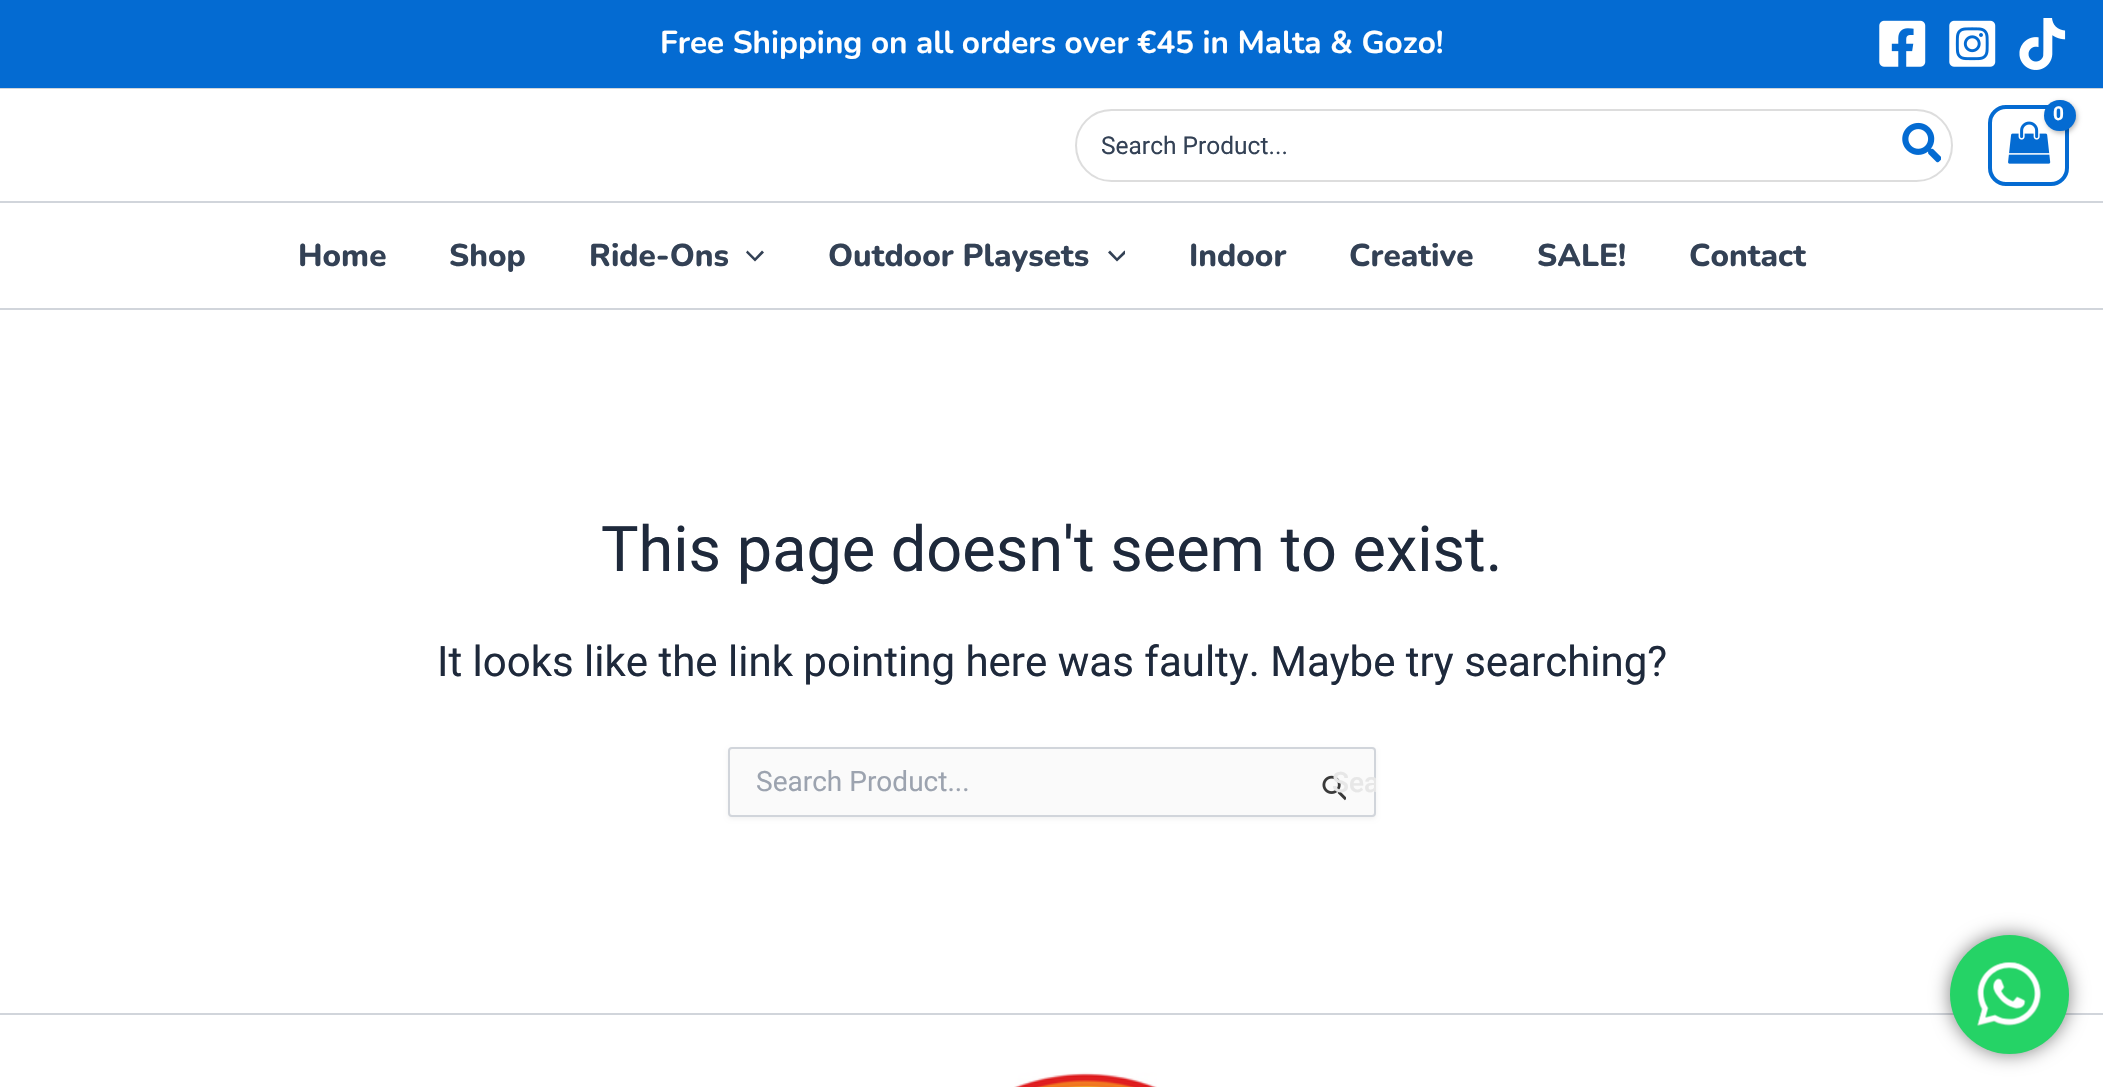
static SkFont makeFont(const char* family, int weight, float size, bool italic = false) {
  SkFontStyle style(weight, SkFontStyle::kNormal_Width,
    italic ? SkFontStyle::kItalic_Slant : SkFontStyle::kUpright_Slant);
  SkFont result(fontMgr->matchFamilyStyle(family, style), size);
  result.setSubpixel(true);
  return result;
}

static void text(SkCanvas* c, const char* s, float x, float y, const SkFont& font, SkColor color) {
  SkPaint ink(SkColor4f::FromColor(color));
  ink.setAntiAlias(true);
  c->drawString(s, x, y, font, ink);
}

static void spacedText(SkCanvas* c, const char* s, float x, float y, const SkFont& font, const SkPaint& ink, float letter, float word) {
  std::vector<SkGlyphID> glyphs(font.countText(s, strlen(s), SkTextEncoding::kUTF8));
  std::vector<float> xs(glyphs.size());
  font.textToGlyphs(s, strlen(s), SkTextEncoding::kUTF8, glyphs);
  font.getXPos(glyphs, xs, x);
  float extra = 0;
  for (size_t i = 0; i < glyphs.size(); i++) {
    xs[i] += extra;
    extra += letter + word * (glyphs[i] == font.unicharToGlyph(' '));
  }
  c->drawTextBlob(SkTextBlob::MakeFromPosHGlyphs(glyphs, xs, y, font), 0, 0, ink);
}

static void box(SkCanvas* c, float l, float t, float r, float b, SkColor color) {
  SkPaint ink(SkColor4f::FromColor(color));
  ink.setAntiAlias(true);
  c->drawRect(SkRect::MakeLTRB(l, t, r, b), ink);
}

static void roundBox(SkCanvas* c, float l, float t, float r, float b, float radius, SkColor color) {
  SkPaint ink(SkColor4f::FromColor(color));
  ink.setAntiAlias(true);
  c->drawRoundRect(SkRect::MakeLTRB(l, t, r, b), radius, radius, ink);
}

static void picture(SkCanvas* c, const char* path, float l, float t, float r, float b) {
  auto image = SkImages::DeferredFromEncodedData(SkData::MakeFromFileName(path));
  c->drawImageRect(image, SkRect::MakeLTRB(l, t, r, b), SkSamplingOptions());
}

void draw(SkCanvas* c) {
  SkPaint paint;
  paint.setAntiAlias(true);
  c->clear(0xffffffff);
  box(c, 0, 0, 2103, 88, 0xff046bd2);
  box(c, 0, 88, 2103, 89, 0xffd1d5db);
  SkFont face1 = makeFont("Nunito", 700, 31.5f);
  text(c, "Free Shipping on all orders over €45 in Malta & Gozo!", 660, 53, face1, 0xffffffff);
  picture(c, "img_01.png", 1879, 20, 1926, 67);
  picture(c, "img_02.png", 1949, 20, 1996, 67);
  picture(c, "img_03.png", 2019, 18, 2066, 70);
  box(c, 0, 201, 2103, 203, 0xffd1d5db);
  paint.setStyle(SkPaint::kStroke_Style);
  paint.setStrokeWidth(4);
  paint.setColor(0xff046bd2);
  c->drawRoundRect(SkRect::MakeLTRB(1990, 107, 2067, 184), 16, 16, paint);
  picture(c, "img_04.png", 2008, 121, 2051, 164);
  paint.setStyle(SkPaint::kFill_Style);
  paint.setColor(0x4d000000);
  paint.setMaskFilter(SkMaskFilter::MakeBlur(kNormal_SkBlurStyle, 2.5f));
  c->drawRoundRect(SkRect::MakeLTRB(2046, 102, 2077, 133), 15.5f, 15.5f, paint);
  paint.setMaskFilter(nullptr);
  roundBox(c, 2044, 100, 2076, 131, 15.5f, 0xff046bd2);
  SkFont face2 = makeFont("Roboto", 700, 19);
  paint.setColor(0xffffffff);
  spacedText(c, "0", 2053, 120, face2, paint, -1, 0);
  paint.setStyle(SkPaint::kStroke_Style);
  paint.setStrokeWidth(2);
  paint.setColor(0xffdddddd);
  c->drawRoundRect(SkRect::MakeLTRB(1076, 110, 1952, 181), 35.5f, 35.5f, paint);
  SkFont face3 = makeFont("Roboto", 400, 24.5f);
  text(c, "Search Product...", 1101, 154, face3, 0xff334155);
  picture(c, "img_05.png", 1902, 122, 1941, 163);
  box(c, 0, 308, 2103, 310, 0xffd1d5db);
  SkFont face4 = makeFont("Nunito", 800, 31.5f);
  text(c, "Home", 298, 266, face4, 0xff334155);
  text(c, "Shop", 449, 266, face4, 0xff334155);
  text(c, "Ride-Ons", 589, 266, face4, 0xff334155);
  paint.setStyle(SkPaint::kFill_Style);
  paint.setColor(0xff334155);
  c->drawPath(SkPathBuilder().moveTo(746, 252.5f).lineTo(755, 261.5f).lineTo(764, 252.5f).lineTo(762, 250.5f).lineTo(755, 258).lineTo(747.5f, 250.5f).close().detach(), paint);
  text(c, "Outdoor Playsets", 828, 266, face4, 0xff334155);
  c->save();
  c->clipRect(SkRect::MakeLTRB(1108, 247, 1125, 266));
  c->drawPath(SkPathBuilder().moveTo(1108, 252.5f).lineTo(1117, 261.5f).lineTo(1126.5f, 252.5f).lineTo(1124.5f, 250.5f).lineTo(1117, 258).lineTo(1110, 250.5f).close().detach(), paint);
  c->restore();
  text(c, "Indoor", 1189, 266, face4, 0xff334155);
  text(c, "Creative", 1349, 266, face4, 0xff334155);
  text(c, "SALE!", 1537, 266, face4, 0xff334155);
  text(c, "Contact", 1689, 266, face4, 0xff334155);
  SkFont face5 = makeFont("Roboto", 400, 63);
  text(c, "This page doesn't seem to exist.", 601, 571, face5, 0xff1e293b);
  SkFont face6 = makeFont("Roboto", 400, 42);
  text(c, "It looks like the link pointing here was faulty. Maybe try searching?", 437, 676, face6, 0xff1e293b);
  paint.setColor(0x0d000000);
  paint.setMaskFilter(SkMaskFilter::MakeBlur(kNormal_SkBlurStyle, 2));
  c->drawRoundRect(SkRect::MakeLTRB(728, 749, 1376, 819), 4, 4, paint);
  paint.setMaskFilter(nullptr);
  paint.setColor(0xfffafafa);
  c->drawRoundRect(SkRect::MakeLTRB(729, 748, 1375, 816), 3, 3, paint);
  paint.setStyle(SkPaint::kStroke_Style);
  paint.setColor(0xffd1d5db);
  c->drawRoundRect(SkRect::MakeLTRB(729, 748, 1375, 816), 3, 3, paint);
  SkFont face7 = makeFont("Roboto", 400, 28);
  text(c, "Search Product...", 756, 791, face7, 0xff9ca3af);
  picture(c, "img_06.png", 1322, 775, 1346, 801);
  c->save();
  c->clipPath(SkPathBuilder().moveTo(1301, 747).lineTo(1372, 747).cubicTo(1374, 747, 1376, 749, 1376, 751).lineTo(1376, 817).cubicTo(1376, 819, 1374, 821, 1372, 821).lineTo(1301, 821).cubicTo(1299, 821, 1297, 819, 1297, 817).lineTo(1297, 751).cubicTo(1297, 749, 1299, 747, 1301, 747).close().detach(), true);
  SkFont face8 = makeFont("Roboto", 500, 28);
  text(c, "Sea", 1332, 792, face8, 0xffe7e7e7);
  c->restore();
  box(c, 0, 1013, 2103, 1015, 0xffd1d5db);
  picture(c, "img_07.png", 1014, 1072, 1157, 1087);
  paint.setStyle(SkPaint::kFill_Style);
  paint.setColor(0x80000000);
  paint.setMaskFilter(SkMaskFilter::MakeBlur(kNormal_SkBlurStyle, 9.5f));
  c->drawRoundRect(SkRect::MakeLTRB(1950, 935, 2069, 1054), 59.5f, 59.5f, paint);
  paint.setMaskFilter(nullptr);
  paint.setColor(0xff25d366);
  c->drawCircle(2009.5f, 994.5f, 59.5f, paint);
  picture(c, "img_08.png", 1977, 962, 2041, 1026);
}
